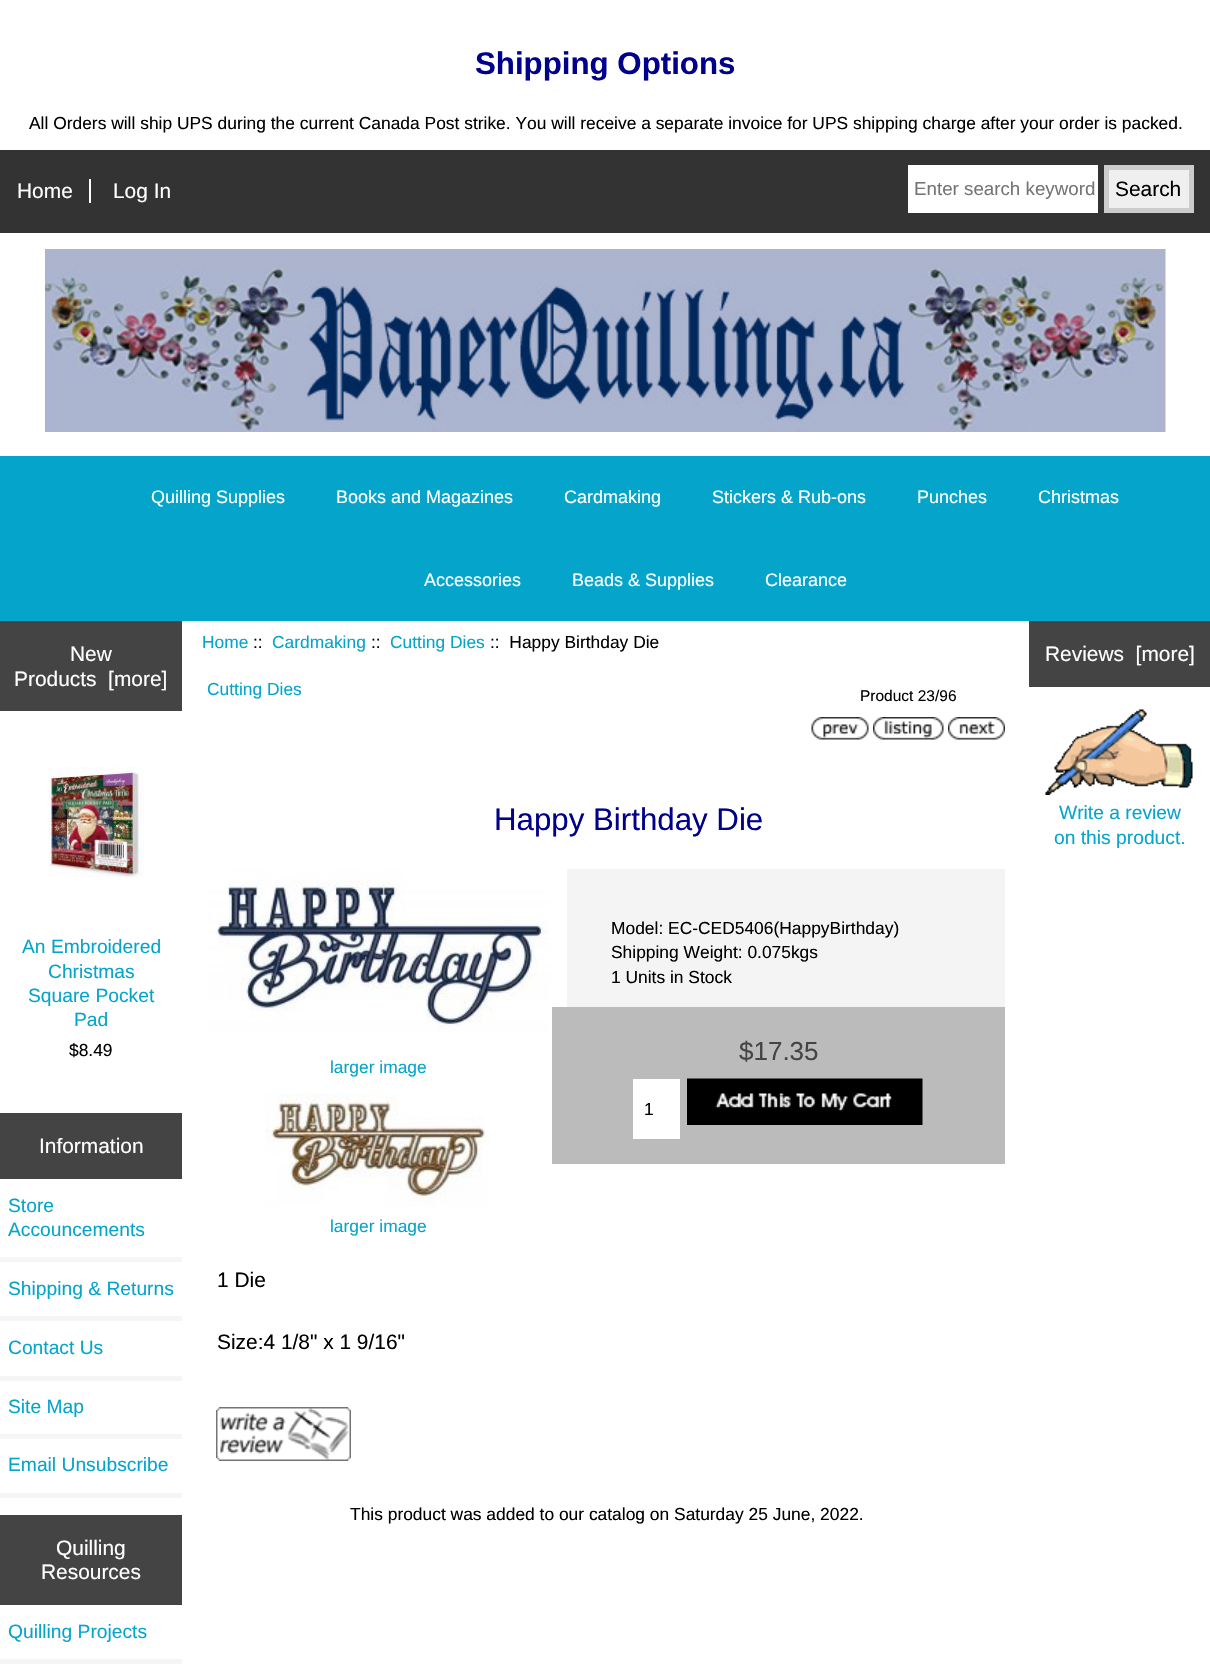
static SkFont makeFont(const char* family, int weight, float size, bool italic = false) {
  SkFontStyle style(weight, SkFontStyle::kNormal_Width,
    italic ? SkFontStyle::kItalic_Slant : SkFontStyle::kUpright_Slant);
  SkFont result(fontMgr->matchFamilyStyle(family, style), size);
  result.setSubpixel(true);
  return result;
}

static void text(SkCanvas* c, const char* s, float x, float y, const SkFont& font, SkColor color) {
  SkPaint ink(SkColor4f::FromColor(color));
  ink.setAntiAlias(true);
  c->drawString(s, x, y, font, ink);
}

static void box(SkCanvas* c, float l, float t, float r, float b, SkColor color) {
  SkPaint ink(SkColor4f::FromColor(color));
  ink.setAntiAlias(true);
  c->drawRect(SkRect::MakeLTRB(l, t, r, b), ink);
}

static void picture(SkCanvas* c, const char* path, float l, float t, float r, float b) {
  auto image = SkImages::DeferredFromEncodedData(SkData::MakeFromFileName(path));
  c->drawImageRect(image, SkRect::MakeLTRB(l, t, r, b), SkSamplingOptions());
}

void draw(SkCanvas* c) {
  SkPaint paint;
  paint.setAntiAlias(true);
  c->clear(0xffffffff);
  SkFont face1 = makeFont("Liberation Sans", 700, 31.25f);
  text(c, "Shipping Options", 475, 74, face1, 0xff00008b);
  SkFont face2 = makeFont("Liberation Sans", 400, 17.4f);
  text(c, "All Orders will ship UPS during the current Canada Post strike. You will receive a separate invoice for UPS shipping charge after your order is packed.", 29, 129, face2, 0xff000000);
  box(c, 0, 150, 1210, 233, 0xff333333);
  SkFont face3 = makeFont("Liberation Sans", 400, 20.9f);
  text(c, "Home", 17, 198, face3, 0xffffffff);
  box(c, 89, 179, 91, 203, 0xffffffff);
  text(c, "Log In", 113, 198, face3, 0xffffffff);
  box(c, 908, 165, 1098, 213, 0xffffffff);
  SkFont face4 = makeFont("Liberation Sans", 400, 18.75f);
  text(c, "Enter search keyword", 914, 195, face4, 0xff757575);
  paint.setColor(0xffefefef);
  c->drawRect(SkRect::MakeLTRB(1106.5f, 167.5f, 1191.5f, 210.5f), paint);
  paint.setStyle(SkPaint::kStroke_Style);
  paint.setStrokeWidth(5);
  paint.setColor(0xffcccccc);
  c->drawRect(SkRect::MakeLTRB(1106.5f, 167.5f, 1191.5f, 210.5f), paint);
  text(c, "Search", 1115, 196, face3, 0xff000000);
  picture(c, "img_01.png", 45, 249, 1166, 432);
  box(c, 0, 456, 1210, 621, 0xff05a5cb);
  SkFont face5 = makeFont("Liberation Sans", 400, 18);
  text(c, "Quilling Supplies", 151, 503, face5, 0xffffffff);
  text(c, "Books and Magazines", 336, 503, face5, 0xffffffff);
  text(c, "Cardmaking", 564, 503, face5, 0xffffffff);
  text(c, "Stickers & Rub-ons", 712, 503, face5, 0xffffffff);
  text(c, "Punches", 917, 503, face5, 0xffffffff);
  text(c, "Christmas", 1038, 503, face5, 0xffffffff);
  text(c, "Accessories", 424, 586, face5, 0xffffffff);
  text(c, "Beads & Supplies", 572, 586, face5, 0xffffffff);
  text(c, "Clearance", 765, 586, face5, 0xffffffff);
  box(c, 0, 621, 182, 711, 0xff444444);
  text(c, "New", 70, 661, face3, 0xffffffff);
  text(c, "Products  [more]", 14, 686, face3, 0xffffffff);
  picture(c, "img_02.png", 49, 767, 144, 878);
  SkFont face6 = makeFont("Liberation Sans", 400, 19.25f);
  text(c, "An Embroidered", 22, 953, face6, 0xff05a5cb);
  text(c, "Christmas", 48, 978, face6, 0xff05a5cb);
  text(c, "Square Pocket", 28, 1002, face6, 0xff05a5cb);
  text(c, "Pad", 74, 1026, face6, 0xff05a5cb);
  text(c, "$8.49", 69, 1056, face2, 0xff000000);
  box(c, 0, 1113, 182, 1179, 0xff444444);
  text(c, "Information", 39, 1153, face3, 0xffffffff);
  box(c, 0, 1257, 182, 1262, 0xfff5f5f5);
  text(c, "Store", 8, 1212, face6, 0xff05a5cb);
  text(c, "Accouncements", 8, 1236, face6, 0xff05a5cb);
  box(c, 0, 1316, 182, 1321, 0xfff5f5f5);
  text(c, "Shipping & Returns", 8, 1295, face6, 0xff05a5cb);
  box(c, 0, 1376, 182, 1381, 0xfff5f5f5);
  text(c, "Contact Us", 8, 1354, face6, 0xff05a5cb);
  box(c, 0, 1434, 182, 1439, 0xfff5f5f5);
  text(c, "Site Map", 8, 1413, face6, 0xff05a5cb);
  box(c, 0, 1493, 182, 1498, 0xfff5f5f5);
  text(c, "Email Unsubscribe", 8, 1471, face6, 0xff05a5cb);
  box(c, 0, 1515, 182, 1605, 0xff444444);
  text(c, "Quilling", 56, 1555, face3, 0xffffffff);
  text(c, "Resources", 41, 1579, face3, 0xffffffff);
  box(c, 0, 1659, 182, 1664, 0xfff5f5f5);
  text(c, "Quilling Projects", 8, 1638, face6, 0xff05a5cb);
  text(c, "Home", 202, 648, face2, 0xff05a5cb);
  text(c, "::", 253, 648, face2, 0xff000000);
  text(c, "Cardmaking", 272, 648, face2, 0xff05a5cb);
  text(c, "::", 371, 648, face2, 0xff000000);
  text(c, "Cutting Dies", 390, 648, face2, 0xff05a5cb);
  text(c, "::  Happy Birthday Die", 490, 648, face2, 0xff000000);
  text(c, "Cutting Dies", 207, 695, face2, 0xff05a5cb);
  SkFont face7 = makeFont("Liberation Sans", 400, 15.5f);
  text(c, "Product 23/96", 860, 701, face7, 0xff000000);
  picture(c, "img_03.png", 811, 717, 869, 740);
  picture(c, "img_04.png", 873, 717, 944, 740);
  picture(c, "img_05.png", 948, 717, 1005, 740);
  SkFont face8 = makeFont("Liberation Sans", 400, 31.25f);
  text(c, "Happy Birthday Die", 494, 830, face8, 0xff00008b);
  box(c, 567, 869, 1005, 1007, 0xfff4f4f4);
  text(c, "Model: EC-CED5406(HappyBirthday)", 611, 934, face2, 0xff000000);
  text(c, "Shipping Weight: 0.075kgs", 611, 958, face2, 0xff000000);
  text(c, "1 Units in Stock", 611, 983, face2, 0xff000000);
  picture(c, "img_06.png", 207, 869, 550, 1032);
  text(c, "larger image", 330, 1073, face2, 0xff05a5cb);
  picture(c, "img_07.png", 265, 1093, 489, 1207);
  text(c, "larger image", 330, 1232, face2, 0xff05a5cb);
  box(c, 552, 1007, 1005, 1164, 0xffbbbbbb);
  SkFont face9 = makeFont("Liberation Sans", 400, 26);
  text(c, "$17.35", 739, 1060, face9, 0xff444444);
  box(c, 633, 1079, 680, 1139, 0xffffffff);
  text(c, "1", 644, 1115, face2, 0xff000000);
  picture(c, "img_08.png", 687, 1078, 923, 1125);
  text(c, "1 Die", 217, 1287, face3, 0xff000000);
  text(c, "Size:4 1/8\" x 1 9/16\"", 217, 1349, face3, 0xff000000);
  picture(c, "img_09.png", 216, 1407, 351, 1461);
  text(c, "This product was added to our catalog on Saturday 25 June, 2022.", 350, 1520, face2, 0xff000000);
  box(c, 1029, 621, 1210, 687, 0xff444444);
  text(c, "Reviews  [more]", 1045, 661, face3, 0xffffffff);
  picture(c, "img_10.png", 1045, 709, 1193, 795);
  text(c, "Write a review", 1059, 819, face6, 0xff05a5cb);
  text(c, "on this product.", 1054, 844, face6, 0xff05a5cb);
}
